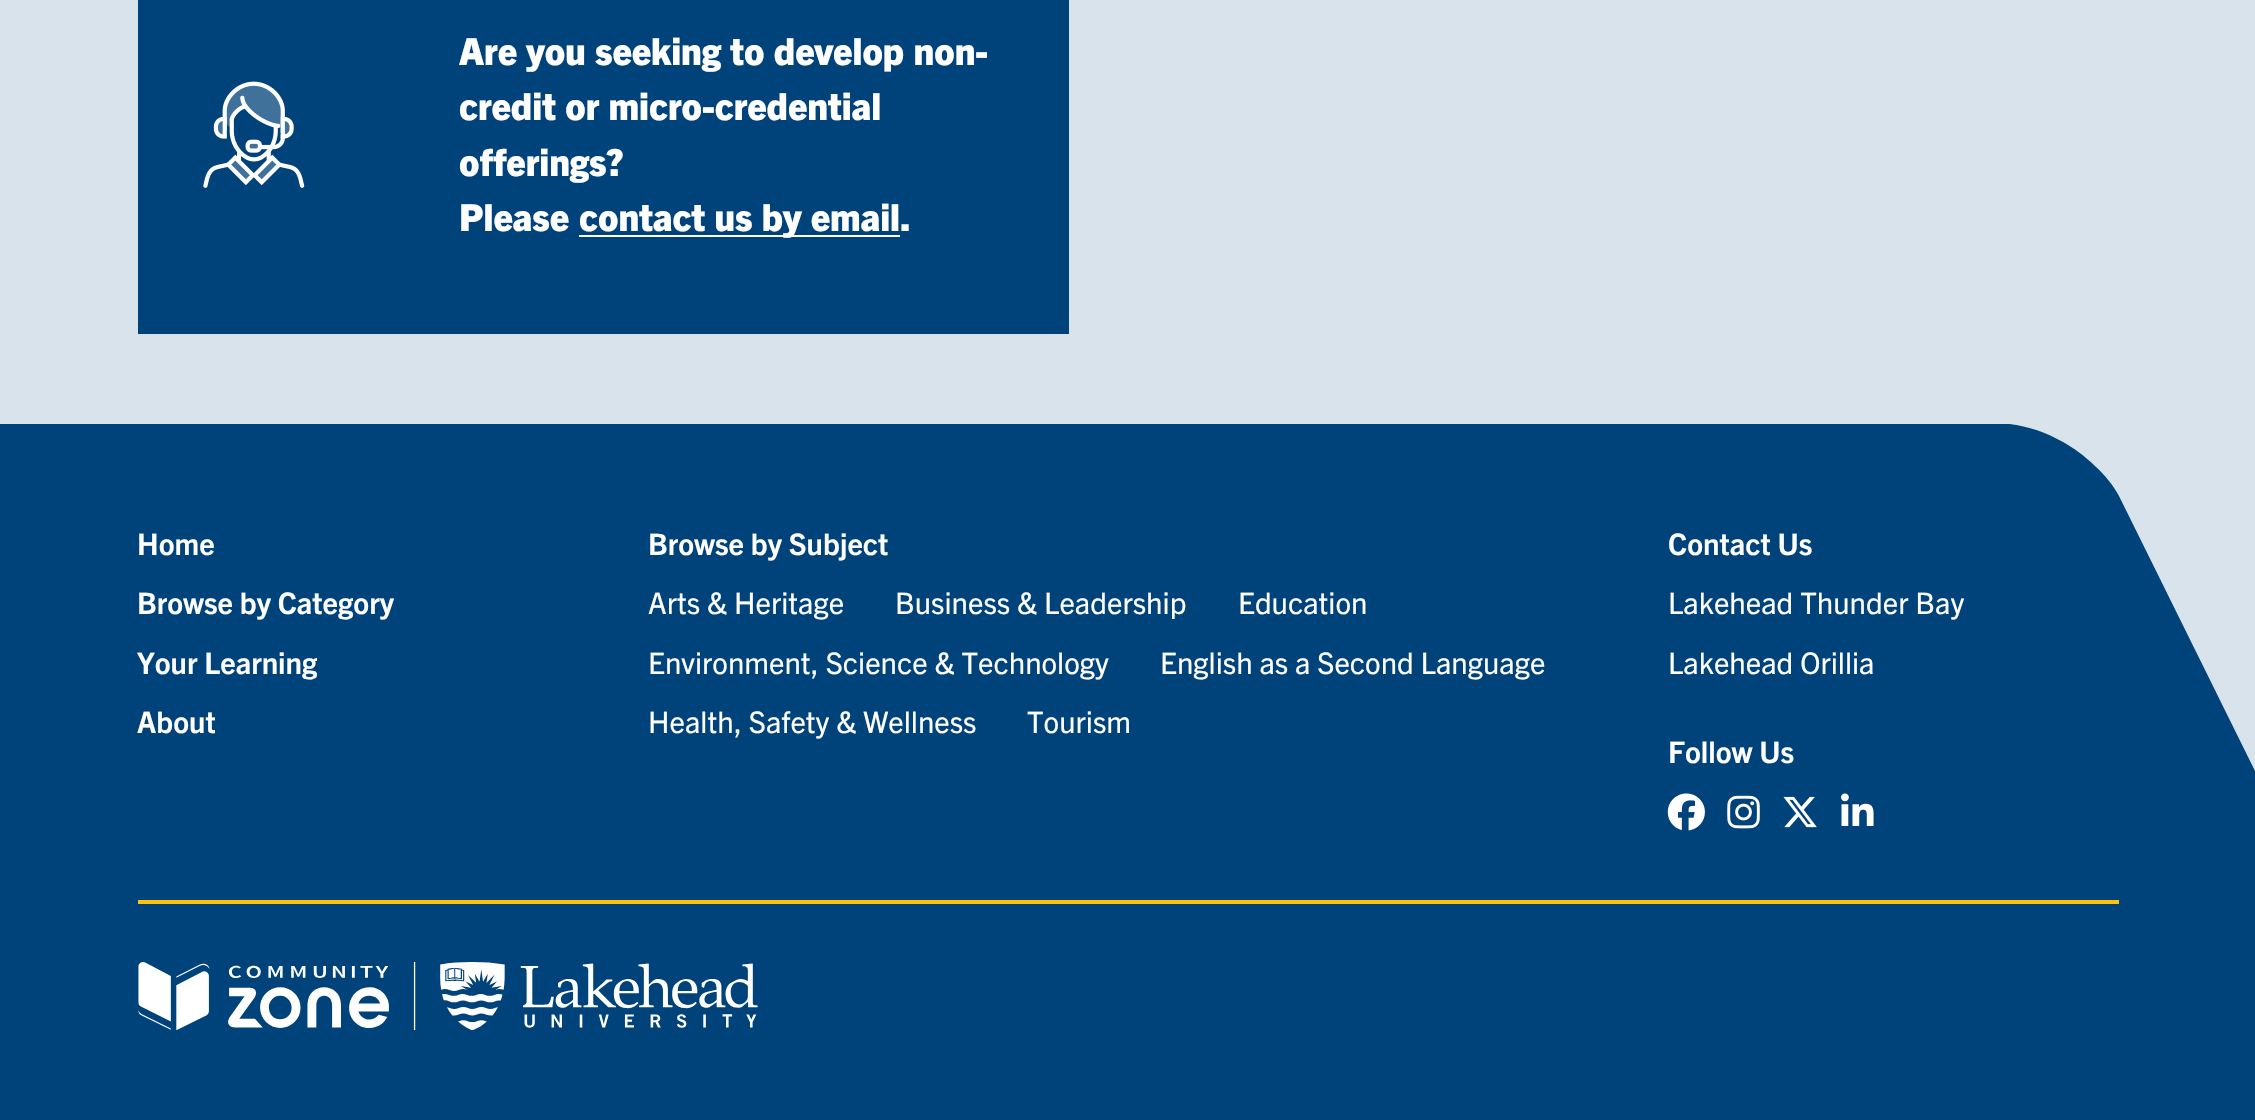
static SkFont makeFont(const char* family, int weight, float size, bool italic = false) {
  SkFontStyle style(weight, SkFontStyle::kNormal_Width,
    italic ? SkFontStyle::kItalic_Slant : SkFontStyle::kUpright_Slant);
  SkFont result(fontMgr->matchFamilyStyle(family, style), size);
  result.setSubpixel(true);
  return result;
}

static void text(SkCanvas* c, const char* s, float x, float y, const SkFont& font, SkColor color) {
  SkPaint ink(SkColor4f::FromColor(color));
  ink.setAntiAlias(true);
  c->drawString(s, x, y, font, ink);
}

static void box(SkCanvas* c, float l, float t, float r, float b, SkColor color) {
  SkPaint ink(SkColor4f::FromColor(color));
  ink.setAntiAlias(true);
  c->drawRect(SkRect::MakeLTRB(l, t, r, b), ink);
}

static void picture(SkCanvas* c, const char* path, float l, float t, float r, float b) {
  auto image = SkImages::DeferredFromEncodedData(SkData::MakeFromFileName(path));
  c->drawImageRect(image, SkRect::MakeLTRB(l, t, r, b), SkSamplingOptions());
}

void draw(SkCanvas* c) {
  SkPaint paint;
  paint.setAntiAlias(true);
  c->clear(0xffd9e3eb);
  box(c, 138, 0, 1069, 334, 0xff00427a);
  picture(c, "img_01.png", 203, 81, 305, 188);
  SkFont face1 = makeFont("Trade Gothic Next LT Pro", 800, 37.25f);
  text(c, "Are you seeking to develop non-", 459, 65, face1, 0xffffffff);
  text(c, "credit or micro-credential", 459, 120, face1, 0xffffffff);
  text(c, "offerings?", 459, 176, face1, 0xffffffff);
  text(c, "Please", 459, 231, face1, 0xffffffff);
  box(c, 579, 235, 900, 237, 0xffffffff);
  text(c, "contact us by email.", 579, 231, face1, 0xffffffff);
  box(c, 0, 424, 2255, 1120, 0xff00427a);
  SkFont face2 = makeFont("Trade Gothic Next LT Pro", 700, 29.75f);
  text(c, "Home", 137, 555, face2, 0xffffffff);
  text(c, "Browse by Category", 137, 614, face2, 0xffffffff);
  text(c, "Your Learning", 137, 674, face2, 0xffffffff);
  text(c, "About", 137, 733, face2, 0xffffffff);
  text(c, "Browse by Subject", 648, 555, face2, 0xffffffff);
  SkFont face3 = makeFont("Trade Gothic Next LT Pro", 400, 29.75f);
  text(c, "Arts & Heritage", 648, 614, face3, 0xffffffff);
  text(c, "Business & Leadership", 895, 614, face3, 0xffffffff);
  text(c, "Education", 1238, 614, face3, 0xffffffff);
  text(c, "Environment, Science & Technology", 648, 674, face3, 0xffffffff);
  text(c, "English as a Second Language", 1160, 674, face3, 0xffffffff);
  text(c, "Health, Safety & Wellness", 648, 733, face3, 0xffffffff);
  text(c, "Tourism", 1027, 733, face3, 0xffffffff);
  text(c, "Contact Us", 1668, 555, face2, 0xffffffff);
  text(c, "Lakehead Thunder Bay", 1668, 614, face3, 0xffffffff);
  text(c, "Lakehead Orillia", 1668, 674, face3, 0xffffffff);
  text(c, "Follow Us", 1668, 763, face2, 0xffffffff);
  picture(c, "img_02.png", 1667, 793, 1705, 831);
  picture(c, "img_03.png", 1727, 795, 1760, 829);
  picture(c, "img_04.png", 1783, 796, 1817, 828);
  picture(c, "img_05.png", 1841, 793, 1874, 826);
  c->save();
  c->clipRect(SkRect::MakeLTRB(1993, 424, 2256, 774));
  paint.setColor(0xffd9e3eb);
  c->drawPath(SkPathBuilder().moveTo(1993, 423).cubicTo(2018, 423, 2042, 430, 2063, 442).cubicTo(2083, 453, 2109, 476, 2119, 496).lineTo(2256, 773).lineTo(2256, 423).close().detach(), paint);
  c->restore();
  box(c, 138, 900, 2119, 904, 0xffffc20e);
  picture(c, "img_06.png", 138, 962, 758, 1030);
}
